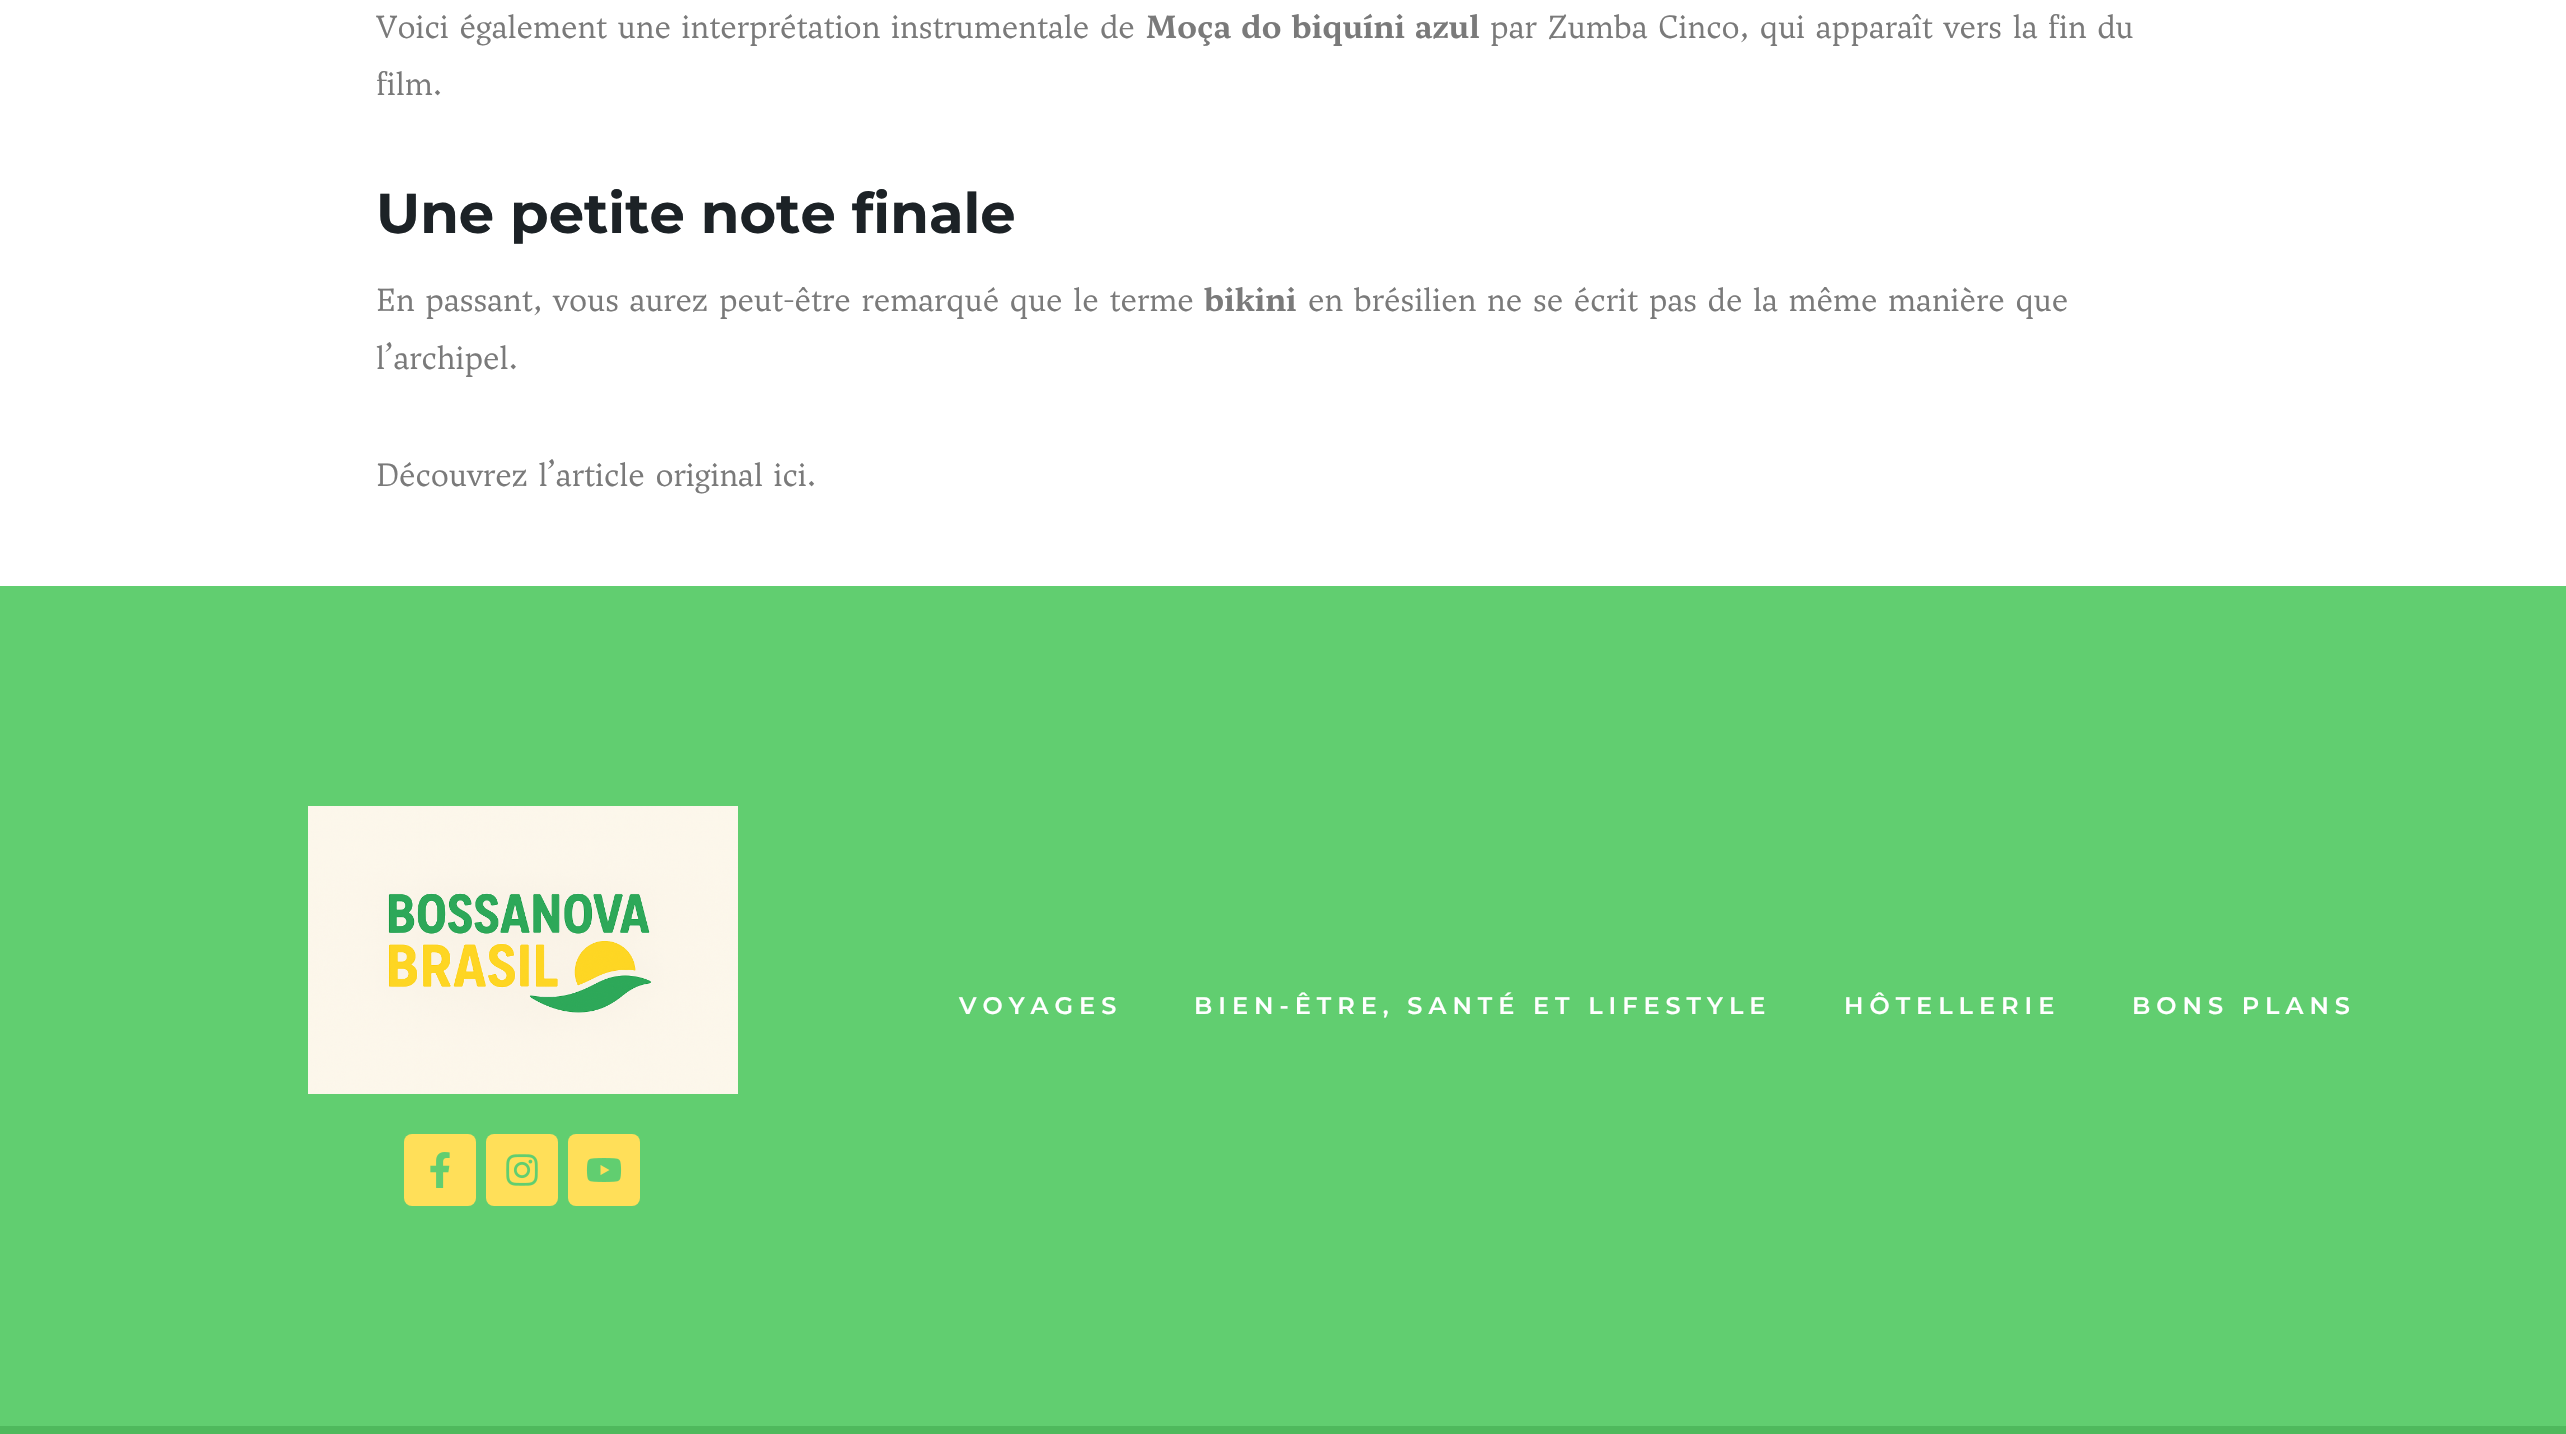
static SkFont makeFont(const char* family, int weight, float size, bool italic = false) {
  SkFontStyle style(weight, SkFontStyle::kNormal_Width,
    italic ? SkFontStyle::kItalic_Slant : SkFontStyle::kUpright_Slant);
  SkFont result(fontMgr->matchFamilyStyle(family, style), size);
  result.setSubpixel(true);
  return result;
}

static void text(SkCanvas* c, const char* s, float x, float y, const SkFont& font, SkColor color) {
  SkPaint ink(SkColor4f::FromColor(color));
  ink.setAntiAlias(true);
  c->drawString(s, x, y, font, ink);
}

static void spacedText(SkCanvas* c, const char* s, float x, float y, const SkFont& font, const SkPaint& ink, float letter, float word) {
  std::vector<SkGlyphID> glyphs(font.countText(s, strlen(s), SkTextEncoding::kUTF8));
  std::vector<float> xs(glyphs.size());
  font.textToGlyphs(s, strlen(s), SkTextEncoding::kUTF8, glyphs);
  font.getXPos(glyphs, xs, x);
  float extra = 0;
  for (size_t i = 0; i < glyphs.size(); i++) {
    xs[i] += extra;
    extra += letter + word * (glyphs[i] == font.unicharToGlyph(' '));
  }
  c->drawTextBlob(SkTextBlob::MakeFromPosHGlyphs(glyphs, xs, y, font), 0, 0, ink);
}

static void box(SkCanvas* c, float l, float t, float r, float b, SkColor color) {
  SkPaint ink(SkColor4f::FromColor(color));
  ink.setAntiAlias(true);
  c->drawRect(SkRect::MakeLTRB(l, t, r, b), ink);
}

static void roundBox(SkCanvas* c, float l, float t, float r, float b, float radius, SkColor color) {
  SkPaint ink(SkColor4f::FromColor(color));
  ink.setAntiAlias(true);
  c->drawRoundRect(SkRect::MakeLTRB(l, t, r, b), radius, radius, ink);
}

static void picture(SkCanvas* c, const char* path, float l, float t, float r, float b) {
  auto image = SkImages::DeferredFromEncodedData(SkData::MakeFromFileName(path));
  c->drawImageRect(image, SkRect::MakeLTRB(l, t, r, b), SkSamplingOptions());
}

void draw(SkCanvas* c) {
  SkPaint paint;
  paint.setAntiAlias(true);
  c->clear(0xffffffff);
  SkFont face1 = makeFont("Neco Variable", 400, 32);
  paint.setColor(0xff7a7a7a);
  spacedText(c, "Voici également une interprétation instrumentale de", 376, 38, face1, paint, 0, 2);
  SkFont face2 = makeFont("Neco Variable", 700, 32);
  spacedText(c, "Moça do biquíni azul", 1146, 38, face2, paint, 0, 2);
  spacedText(c, "par Zumba Cinco, qui apparaît vers la fin du", 1490, 38, face1, paint, 0, 2);
  text(c, "film.", 376, 95, face1, 0xff7a7a7a);
  SkFont face3 = makeFont("Montserrat", 700, 56);
  text(c, "Une petite note finale", 376, 233, face3, 0xff1c2226);
  spacedText(c, "En passant, vous aurez peut-être remarqué que le terme", 376, 311, face1, paint, 0, 2);
  text(c, "bikini", 1204, 311, face2, 0xff7a7a7a);
  spacedText(c, "en brésilien ne se écrit pas de la même manière que", 1308, 311, face1, paint, 0, 2);
  text(c, "l’archipel.", 376, 369, face1, 0xff7a7a7a);
  spacedText(c, "Découvrez l’article original ici.", 376, 486, face1, paint, 0, 2);
  box(c, 0, 586, 2566, 1426, 0xff61ce70);
  picture(c, "img_01.png", 308, 806, 738, 1094);
  roundBox(c, 404, 1134, 476, 1206, 8, 0xffffdf59);
  picture(c, "img_02.png", 430, 1152, 450, 1188);
  roundBox(c, 486, 1134, 558, 1206, 8, 0xffffdf59);
  picture(c, "img_03.png", 506, 1154, 538, 1186);
  roundBox(c, 568, 1134, 640, 1206, 8, 0xffffdf59);
  picture(c, "img_04.png", 586, 1158, 622, 1182);
  SkFont face4 = makeFont("Montserrat", 600, 24);
  paint.setColor(0xffffffff);
  spacedText(c, "VOYAGES", 959, 1014, face4, paint, 6, 0);
  spacedText(c, "BIEN-ÊTRE, SANTÉ ET LIFESTYLE", 1194, 1014, face4, paint, 6, 0);
  spacedText(c, "HÔTELLERIE", 1844, 1014, face4, paint, 6, 0);
  spacedText(c, "BONS PLANS", 2132, 1014, face4, paint, 6, 0);
  box(c, 0, 1426, 2566, 1434, 0xff4fb95d);
}
